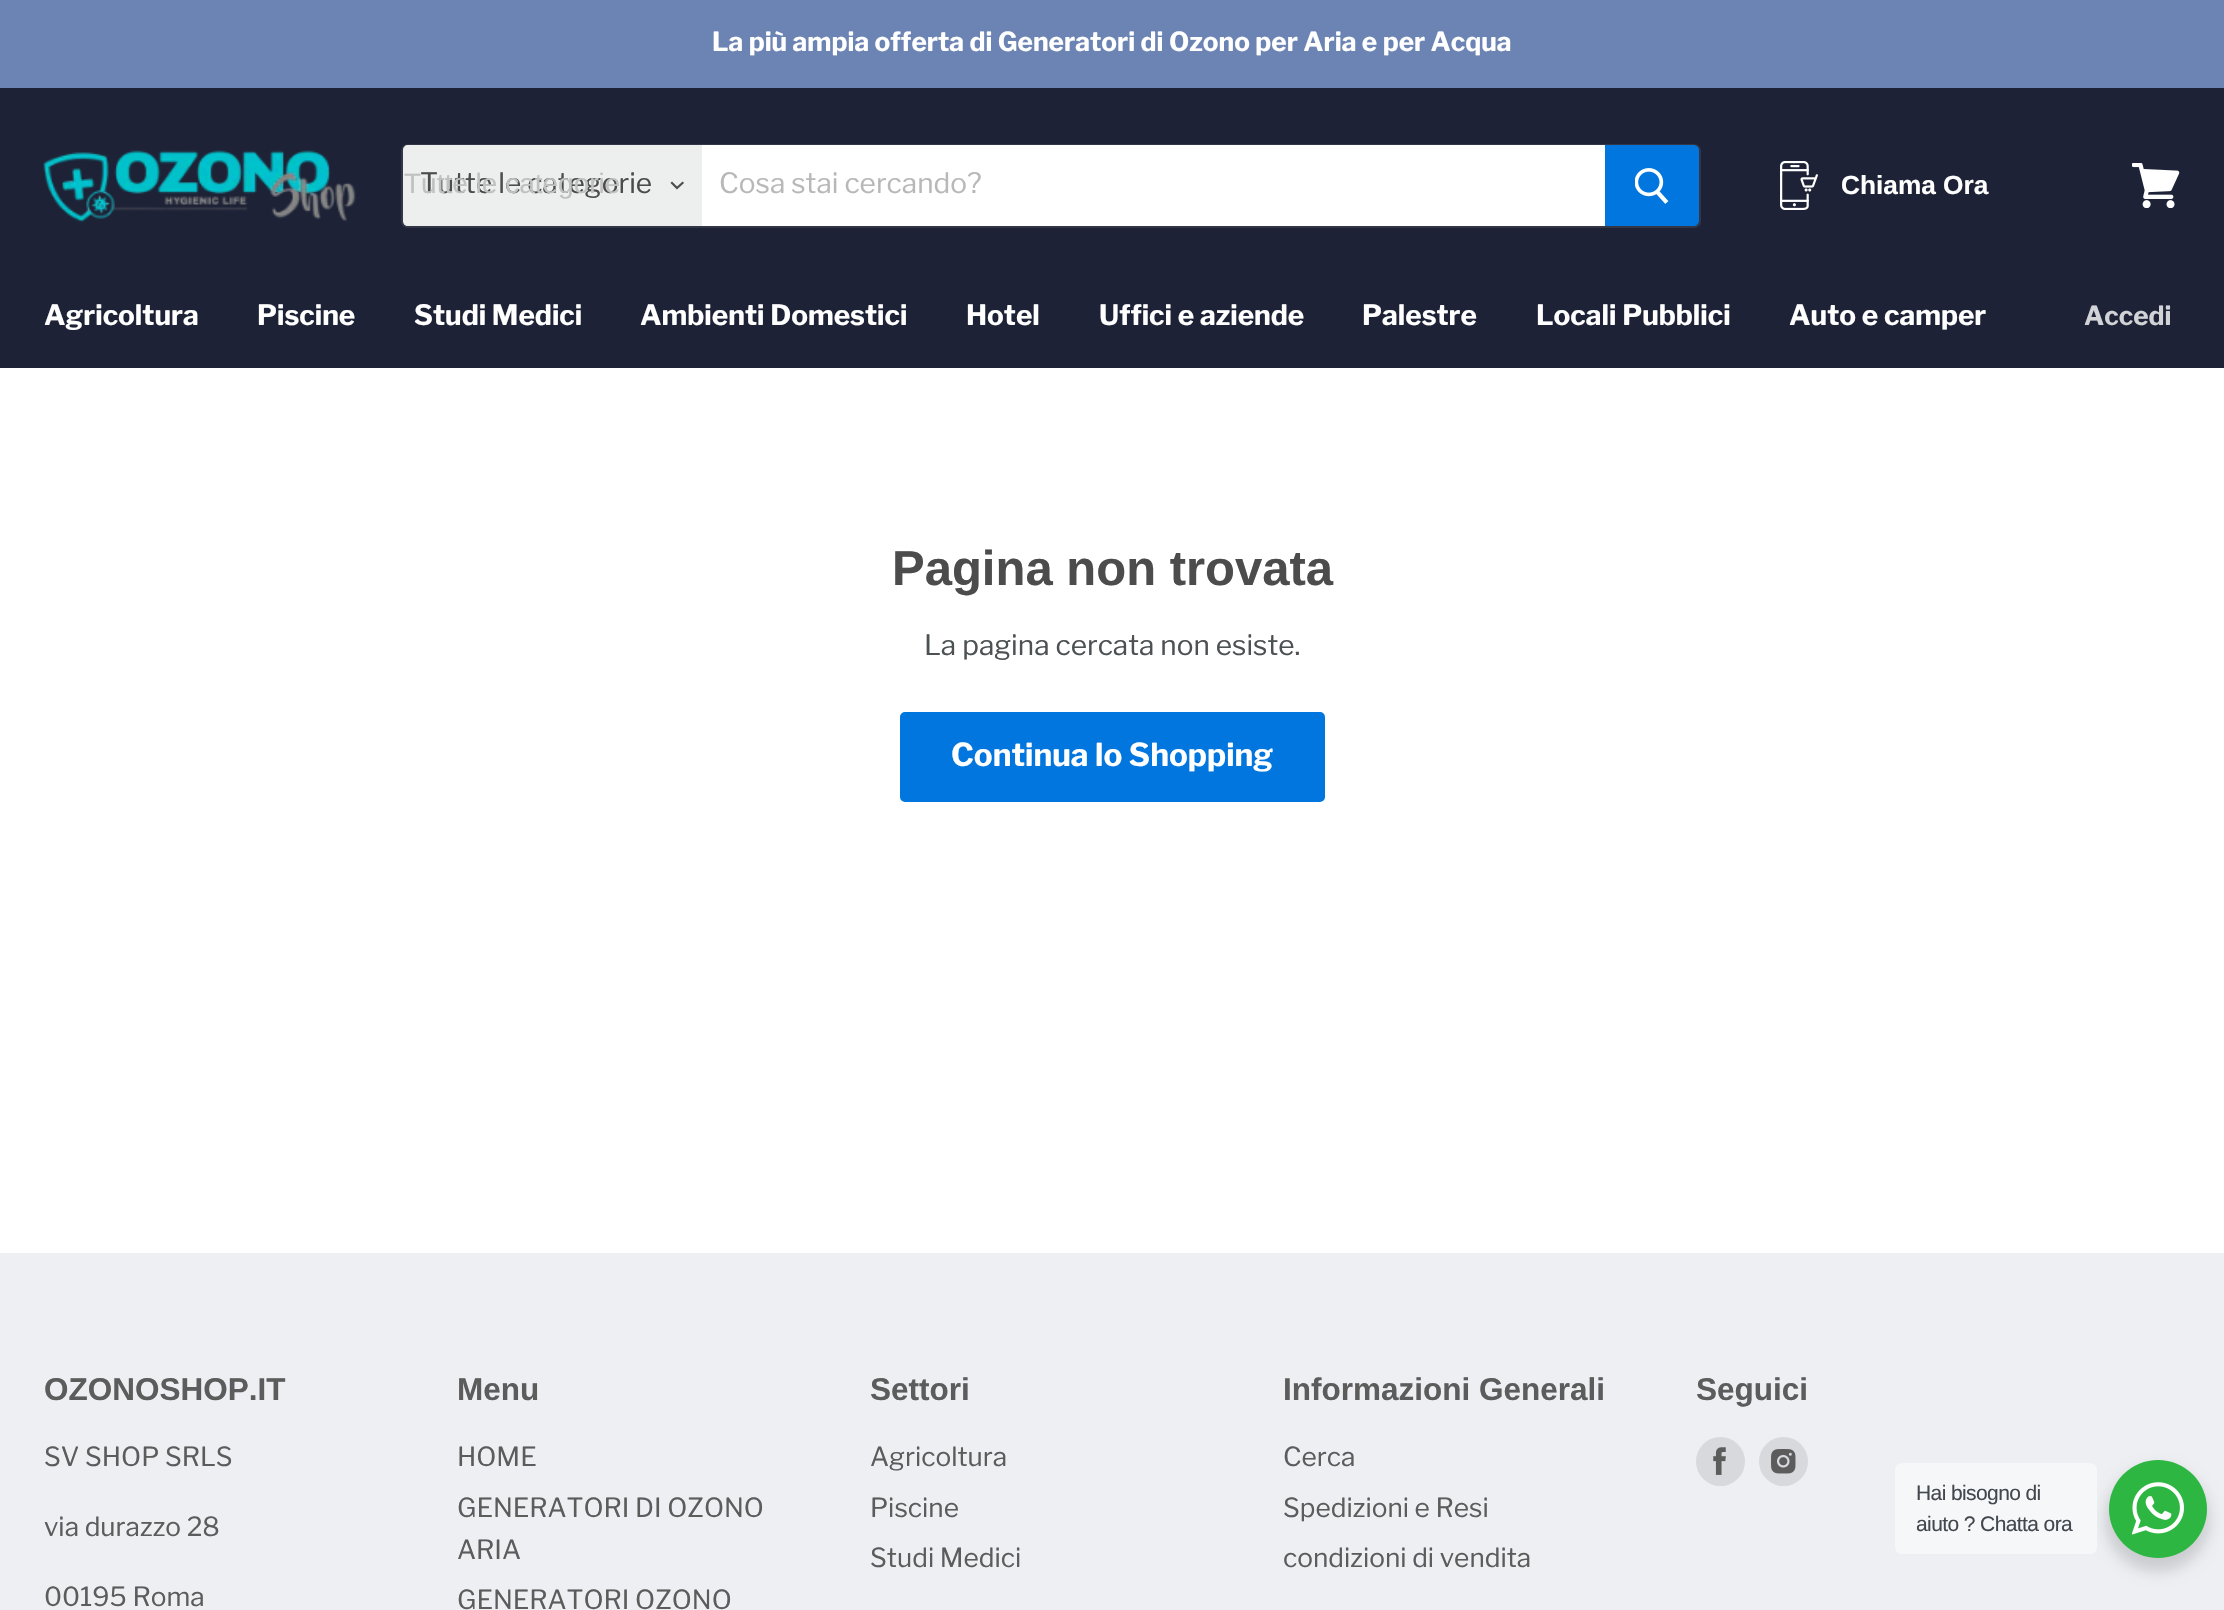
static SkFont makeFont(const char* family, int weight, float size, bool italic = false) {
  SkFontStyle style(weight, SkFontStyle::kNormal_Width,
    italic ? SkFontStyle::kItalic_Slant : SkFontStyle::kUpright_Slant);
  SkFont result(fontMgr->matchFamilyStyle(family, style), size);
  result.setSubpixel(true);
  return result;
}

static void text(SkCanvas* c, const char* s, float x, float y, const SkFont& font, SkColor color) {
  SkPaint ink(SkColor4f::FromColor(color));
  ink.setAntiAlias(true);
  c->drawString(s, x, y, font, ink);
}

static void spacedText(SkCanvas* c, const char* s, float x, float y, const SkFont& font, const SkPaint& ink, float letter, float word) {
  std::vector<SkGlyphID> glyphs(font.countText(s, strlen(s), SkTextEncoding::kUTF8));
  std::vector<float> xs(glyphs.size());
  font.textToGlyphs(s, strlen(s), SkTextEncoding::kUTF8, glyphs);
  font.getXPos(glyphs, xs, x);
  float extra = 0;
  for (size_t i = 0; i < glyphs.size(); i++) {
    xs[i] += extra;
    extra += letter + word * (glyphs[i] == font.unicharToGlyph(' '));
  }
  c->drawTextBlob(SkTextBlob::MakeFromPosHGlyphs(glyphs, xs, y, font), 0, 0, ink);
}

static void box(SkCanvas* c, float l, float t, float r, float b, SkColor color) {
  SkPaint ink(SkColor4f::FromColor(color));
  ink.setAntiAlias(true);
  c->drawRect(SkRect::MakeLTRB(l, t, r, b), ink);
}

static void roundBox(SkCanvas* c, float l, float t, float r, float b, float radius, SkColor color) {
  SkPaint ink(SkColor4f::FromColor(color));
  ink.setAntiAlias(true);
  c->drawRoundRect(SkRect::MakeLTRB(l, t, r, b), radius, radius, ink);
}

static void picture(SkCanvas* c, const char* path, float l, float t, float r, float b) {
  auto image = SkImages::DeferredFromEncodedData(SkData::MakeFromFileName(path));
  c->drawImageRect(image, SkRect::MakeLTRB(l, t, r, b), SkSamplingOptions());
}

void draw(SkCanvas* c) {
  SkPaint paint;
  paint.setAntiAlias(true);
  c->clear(0xffffffff);
  box(c, 0, 0, 2224, 88, 0xff6c84b3);
  SkFont face1 = makeFont("Libre Franklin", 700, 26.25f);
  text(c, "La più ampia offerta di Generatori di Ozono per Aria e per Acqua", 712, 51, face1, 0xffffffff);
  box(c, 0, 88, 2224, 368, 0xff1d2236);
  picture(c, "img_01.png", 43, 150, 356, 222);
  paint.setStyle(SkPaint::kStroke_Style);
  paint.setStrokeWidth(2);
  paint.setColor(0x33808080);
  c->drawRoundRect(SkRect::MakeLTRB(402, 145, 1700, 227), 6, 6, paint);
  paint.setStyle(SkPaint::kFill_Style);
  paint.setColor(0xffedeeee);
  c->drawPath(SkPathBuilder().moveTo(408, 145).lineTo(702, 145).lineTo(702, 226).lineTo(408, 226).cubicTo(405, 226, 403, 224, 403, 221).lineTo(403, 150).cubicTo(403, 147, 405, 145, 408, 145).close().detach(), paint);
  SkFont face2 = makeFont("Libre Franklin", 400, 28);
  text(c, "Tutte le categorie", 420, 193, face2, 0xff4c4c4c);
  SkFont face3 = makeFont("Liberation Sans", 400, 28);
  text(c, "Tutte le categorie", 404, 193, face3, 0xffc1c1c1);
  paint.setStyle(SkPaint::kStroke_Style);
  paint.setStrokeWidth(2.2f);
  paint.setStrokeCap(SkPaint::kSquare_Cap);
  paint.setColor(0xff4d4d4d);
  c->drawPath(SkPathBuilder().moveTo(677, 188).lineTo(682.5f, 183).moveTo(677, 188).lineTo(672, 183).detach(), paint);
  box(c, 702, 145, 1605, 226, 0xffffffff);
  text(c, "Cosa stai cercando?", 719, 193, face2, 0xffb8b8b8);
  paint.setStyle(SkPaint::kFill_Style);
  paint.setColor(0xff0076de);
  c->drawPath(SkPathBuilder().moveTo(1606, 146).lineTo(1694, 146).cubicTo(1696, 146, 1698, 148, 1698, 150).lineTo(1698, 221).cubicTo(1698, 223, 1696, 225, 1694, 225).lineTo(1606, 225).close().detach(), paint);
  paint.setStyle(SkPaint::kStroke_Style);
  paint.setStrokeWidth(2);
  paint.setStrokeCap(SkPaint::kButt_Cap);
  c->drawPath(SkPathBuilder().moveTo(1606, 146).lineTo(1694, 146).cubicTo(1696, 146, 1698, 148, 1698, 150).lineTo(1698, 221).cubicTo(1698, 223, 1696, 225, 1694, 225).lineTo(1606, 225).close().detach(), paint);
  picture(c, "img_02.png", 1635, 168, 1669, 204);
  picture(c, "img_03.png", 1780, 161, 1818, 210);
  SkFont face4 = makeFont("Arimo", 700, 26.25f);
  text(c, "Chiama Ora", 1841, 194, face4, 0xffffffff);
  picture(c, "img_04.png", 2132, 163, 2180, 208);
  SkFont face5 = makeFont("Libre Franklin", 700, 28);
  text(c, "Agricoltura", 44, 325, face5, 0xffffffff);
  text(c, "Piscine", 257, 325, face5, 0xffffffff);
  text(c, "Studi Medici", 414, 325, face5, 0xffffffff);
  text(c, "Ambienti Domestici", 640, 325, face5, 0xffffffff);
  text(c, "Hotel", 966, 325, face5, 0xffffffff);
  text(c, "Uffici e aziende", 1099, 325, face5, 0xffffffff);
  text(c, "Palestre", 1362, 325, face5, 0xffffffff);
  text(c, "Locali Pubblici", 1536, 325, face5, 0xffffffff);
  text(c, "Auto e camper", 1789, 325, face5, 0xffffffff);
  text(c, "Accedi", 2084, 325, face1, 0xffd2d3d7);
  SkFont face6 = makeFont("Arimo", 700, 49);
  text(c, "Pagina non trovata", 892, 585, face6, 0xff4c4c4c);
  text(c, "La pagina cercata non esiste.", 924, 655, face2, 0xff4c5154);
  paint.setStyle(SkPaint::kFill_Style);
  c->drawRoundRect(SkRect::MakeLTRB(901, 713, 1324, 801), 4, 4, paint);
  paint.setStyle(SkPaint::kStroke_Style);
  c->drawRoundRect(SkRect::MakeLTRB(901, 713, 1324, 801), 4, 4, paint);
  SkFont face7 = makeFont("Libre Franklin", 700, 31.5f);
  text(c, "Continua lo Shopping", 951, 766, face7, 0xffffffff);
  box(c, 0, 1253, 2224, 1610, 0xffedeff3);
  SkFont face8 = makeFont("Arimo", 700, 31.5f);
  text(c, "OZONOSHOP.IT", 44, 1400, face8, 0xff5c5c5c);
  SkFont face9 = makeFont("Libre Franklin", 400, 26.25f);
  text(c, "SV SHOP SRLS", 44, 1466, face9, 0xff5c5c5c);
  text(c, "via durazzo 28", 44, 1536, face9, 0xff5c5c5c);
  text(c, "00195 Roma", 44, 1606, face9, 0xff5c5c5c);
  text(c, "Menu", 457, 1400, face8, 0xff5c5c5c);
  text(c, "HOME", 457, 1466, face9, 0xff5c5c5c);
  text(c, "GENERATORI DI OZONO", 457, 1517, face9, 0xff5c5c5c);
  text(c, "ARIA", 457, 1559, face9, 0xff5c5c5c);
  text(c, "GENERATORI OZONO", 457, 1609, face9, 0xff5c5c5c);
  text(c, "Settori", 870, 1400, face8, 0xff5c5c5c);
  text(c, "Agricoltura", 870, 1466, face9, 0xff5c5c5c);
  text(c, "Piscine", 870, 1517, face9, 0xff5c5c5c);
  text(c, "Studi Medici", 870, 1567, face9, 0xff5c5c5c);
  text(c, "Informazioni Generali", 1283, 1400, face8, 0xff5c5c5c);
  text(c, "Cerca", 1283, 1466, face9, 0xff5c5c5c);
  text(c, "Spedizioni e Resi", 1283, 1517, face9, 0xff5c5c5c);
  text(c, "condizioni di vendita", 1283, 1567, face9, 0xff5c5c5c);
  text(c, "Seguici", 1696, 1400, face8, 0xff5c5c5c);
  paint.setStyle(SkPaint::kFill_Style);
  paint.setColor(0xffd7d9dc);
  c->drawCircle(1720.5f, 1461.5f, 24.5f, paint);
  picture(c, "img_05.png", 1713, 1447, 1726, 1475);
  c->drawCircle(1783.5f, 1461.5f, 24.5f, paint);
  picture(c, "img_06.png", 1771, 1449, 1796, 1474);
  paint.setColor(0x24000000);
  paint.setMaskFilter(SkMaskFilter::MakeBlur(kNormal_SkBlurStyle, 7));
  c->drawRoundRect(SkRect::MakeLTRB(2105, 1467, 2210, 1572), 52.5f, 52.5f, paint);
  paint.setMaskFilter(nullptr);
  roundBox(c, 1895, 1463, 2097, 1554, 7, 0xfff5f7f9);
  SkFont face10 = makeFont("Liberation Sans", 400, 21);
  paint.setColor(0xff43474e);
  spacedText(c, "Hai bisogno di", 1916, 1500, face10, paint, -0.6f, 0);
  spacedText(c, "aiuto ? Chatta ora", 1916, 1531, face10, paint, -0.6f, 0);
  paint.setColor(0xff2db742);
  c->drawCircle(2158, 1509, 49, paint);
  picture(c, "img_07.png", 2132, 1482, 2184, 1535);
}
